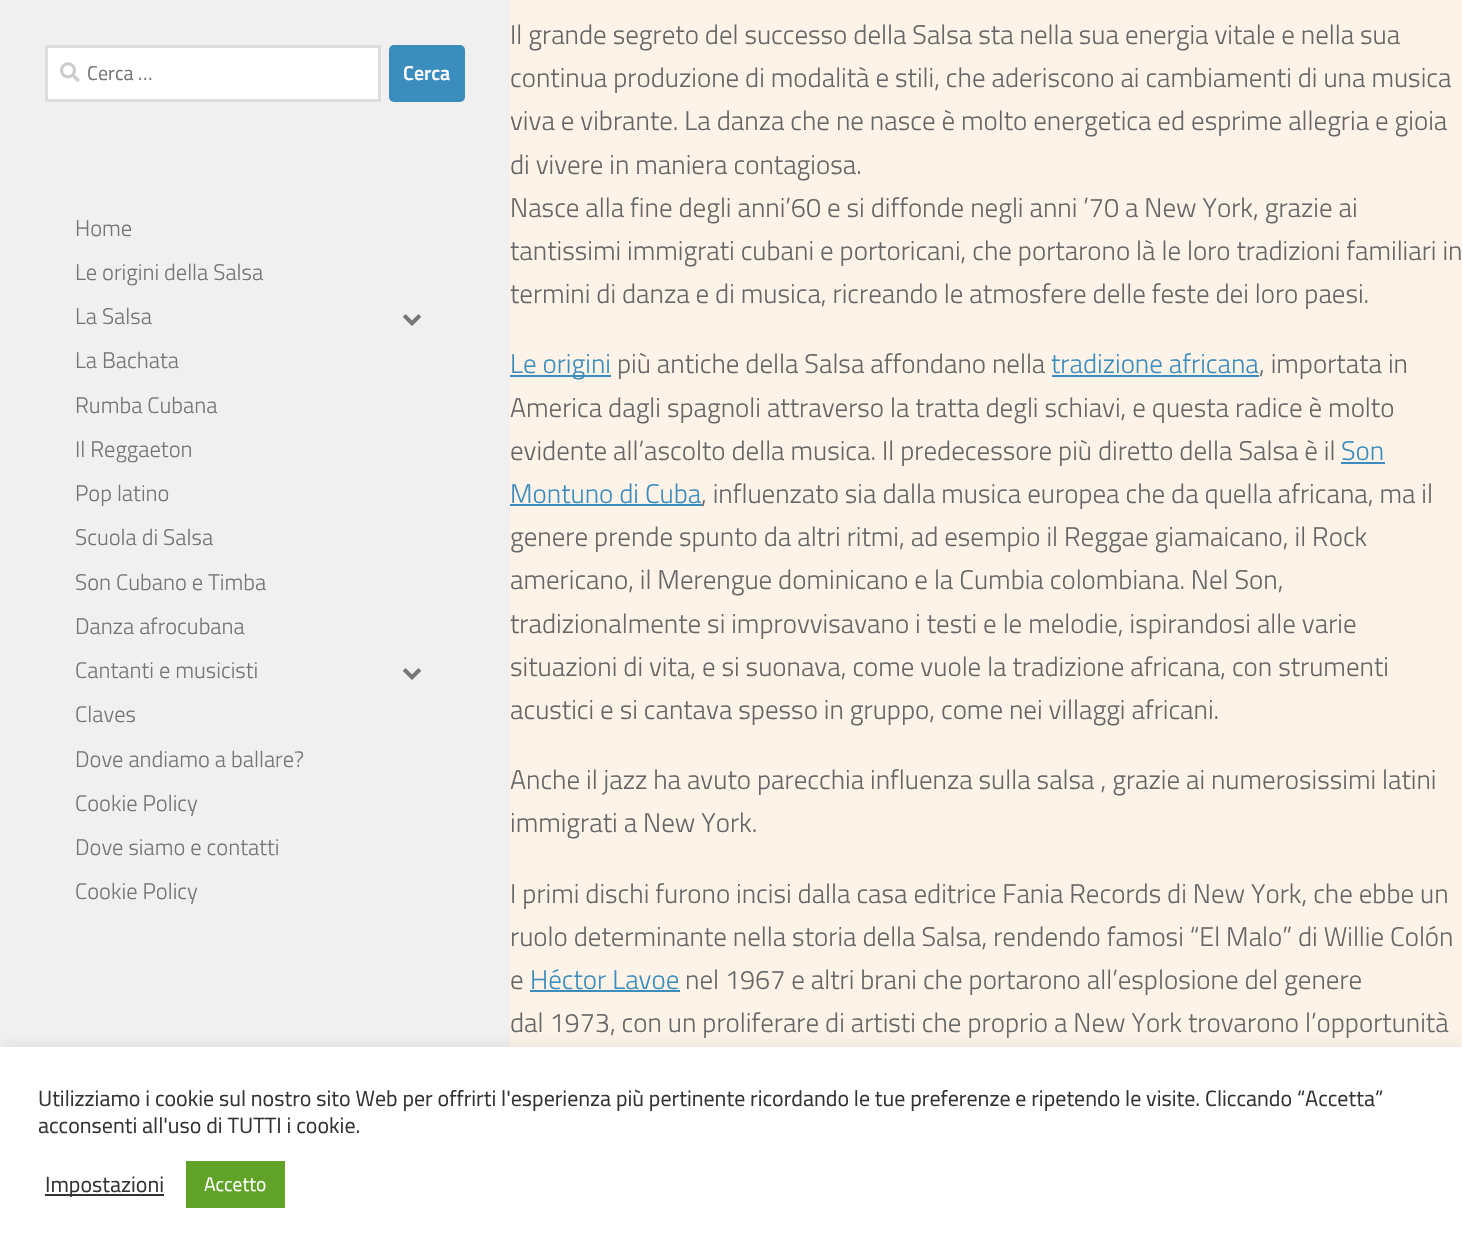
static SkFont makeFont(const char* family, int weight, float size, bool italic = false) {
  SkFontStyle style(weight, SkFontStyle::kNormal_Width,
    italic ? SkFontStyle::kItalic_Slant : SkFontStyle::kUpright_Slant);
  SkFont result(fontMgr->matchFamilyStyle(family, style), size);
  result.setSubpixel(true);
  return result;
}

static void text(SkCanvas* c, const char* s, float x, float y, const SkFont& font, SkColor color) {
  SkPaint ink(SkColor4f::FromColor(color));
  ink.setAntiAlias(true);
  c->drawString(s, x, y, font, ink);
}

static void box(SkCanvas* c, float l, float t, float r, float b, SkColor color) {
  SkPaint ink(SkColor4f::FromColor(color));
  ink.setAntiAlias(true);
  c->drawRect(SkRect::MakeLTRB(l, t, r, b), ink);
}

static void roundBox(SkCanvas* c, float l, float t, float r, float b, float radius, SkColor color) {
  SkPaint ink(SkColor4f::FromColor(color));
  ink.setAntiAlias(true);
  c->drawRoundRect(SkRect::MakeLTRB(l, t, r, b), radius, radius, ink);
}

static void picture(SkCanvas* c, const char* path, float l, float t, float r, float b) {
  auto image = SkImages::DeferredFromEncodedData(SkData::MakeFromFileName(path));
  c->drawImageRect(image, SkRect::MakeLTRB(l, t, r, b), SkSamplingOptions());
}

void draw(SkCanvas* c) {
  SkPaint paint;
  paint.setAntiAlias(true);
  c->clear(0xfff0f0f0);
  paint.setColor(0xffffffff);
  c->drawRect(SkRect::MakeLTRB(46.5f, 46.5f, 379.5f, 100.5f), paint);
  paint.setStyle(SkPaint::kStroke_Style);
  paint.setStrokeWidth(3);
  paint.setColor(0xffdddddd);
  c->drawRect(SkRect::MakeLTRB(46.5f, 46.5f, 379.5f, 100.5f), paint);
  picture(c, "img_01.png", 60, 62, 80, 82);
  SkFont face1 = makeFont("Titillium", 400, 20);
  text(c, "Cerca …", 87, 80, face1, 0xff757575);
  roundBox(c, 389, 45, 465, 102, 5, 0xff3b8dbd);
  SkFont face2 = makeFont("Titillium", 600, 20);
  text(c, "Cerca", 403, 80, face2, 0xffffffff);
  SkFont face3 = makeFont("Titillium", 300, 22.5f);
  text(c, "Home", 75, 236, face3, 0xff757575);
  text(c, "Le origini della Salsa", 75, 280, face3, 0xff757575);
  text(c, "La Salsa", 75, 324, face3, 0xff757575);
  picture(c, "img_02.png", 403, 314, 421, 326);
  text(c, "La Bachata", 75, 368, face3, 0xff757575);
  text(c, "Rumba Cubana", 75, 413, face3, 0xff757575);
  text(c, "Il Reggaeton", 75, 457, face3, 0xff757575);
  text(c, "Pop latino", 75, 501, face3, 0xff757575);
  text(c, "Scuola di Salsa", 75, 545, face3, 0xff757575);
  text(c, "Son Cubano e Timba", 75, 590, face3, 0xff757575);
  text(c, "Danza afrocubana", 75, 634, face3, 0xff757575);
  text(c, "Cantanti e musicisti", 75, 678, face3, 0xff757575);
  picture(c, "img_02.png", 403, 668, 421, 680);
  text(c, "Claves", 75, 722, face3, 0xff757575);
  text(c, "Dove andiamo a ballare?", 75, 767, face3, 0xff757575);
  text(c, "Cookie Policy", 75, 811, face3, 0xff757575);
  text(c, "Dove siamo e contatti", 75, 855, face3, 0xff757575);
  text(c, "Cookie Policy", 75, 899, face3, 0xff757575);
  box(c, 510, 0, 1462, 1047, 0xfffdf3e9);
  SkFont face4 = makeFont("Titillium", 300, 27);
  text(c, "Il grande segreto del successo della Salsa sta nella sua energia vitale e nella sua", 510, 44, face4, 0xff666666);
  text(c, "continua produzione di modalità e stili, che aderiscono ai cambiamenti di una musica", 510, 87, face4, 0xff666666);
  text(c, "viva e vibrante. La danza che ne nasce è molto energetica ed esprime allegria e gioia", 510, 130, face4, 0xff666666);
  text(c, "di vivere in maniera contagiosa.", 510, 174, face4, 0xff666666);
  text(c, "Nasce alla fine degli anni’60 e si diffonde negli anni ’70 a New York, grazie ai", 510, 217, face4, 0xff666666);
  text(c, "tantissimi immigrati cubani e portoricani, che portarono là le loro tradizioni familiari in", 510, 260, face4, 0xff666666);
  text(c, "termini di danza e di musica, ricreando le atmosfere delle feste dei loro paesi.", 510, 303, face4, 0xff666666);
  box(c, 510, 375, 611, 377, 0xff3b8dbd);
  text(c, "Le origini", 510, 373, face4, 0xff3b8dbd);
  text(c, "più antiche della Salsa affondano nella", 617, 373, face4, 0xff666666);
  text(c, "tradizione africana", 1051, 373, face4, 0xff3b8dbd);
  box(c, 1052, 375, 1259, 377, 0xff3b8dbd);
  text(c, ", importata in", 1259, 373, face4, 0xff666666);
  text(c, "America dagli spagnoli attraverso la tratta degli schiavi, e questa radice è molto", 510, 417, face4, 0xff666666);
  text(c, "evidente all’ascolto della musica. Il predecessore più diretto della Salsa è il", 510, 460, face4, 0xff666666);
  text(c, "Son", 1341, 460, face4, 0xff3b8dbd);
  box(c, 1341, 462, 1385, 464, 0xff3b8dbd);
  text(c, "Montuno di Cuba", 510, 503, face4, 0xff3b8dbd);
  box(c, 510, 504, 702, 506, 0xff3b8dbd);
  text(c, ", influenzato sia dalla musica europea che da quella africana, ma il", 701, 503, face4, 0xff666666);
  text(c, "genere prende spunto da altri ritmi, ad esempio il Reggae giamaicano, il Rock", 510, 546, face4, 0xff666666);
  text(c, "americano, il Merengue dominicano e la Cumbia colombiana. Nel Son,", 510, 589, face4, 0xff666666);
  text(c, "tradizionalmente si improvvisavano i testi e le melodie, ispirandosi alle varie", 510, 633, face4, 0xff666666);
  text(c, "situazioni di vita, e si suonava, come vuole la tradizione africana, con strumenti", 510, 676, face4, 0xff666666);
  text(c, "acustici e si cantava spesso in gruppo, come nei villaggi africani.", 510, 719, face4, 0xff666666);
  text(c, "Anche il jazz ha avuto parecchia influenza sulla salsa , grazie ai numerosissimi latini", 510, 789, face4, 0xff666666);
  text(c, "immigrati a New York.", 510, 832, face4, 0xff666666);
  text(c, "I primi dischi furono incisi dalla casa editrice Fania Records di New York, che ebbe un", 510, 903, face4, 0xff666666);
  text(c, "ruolo determinante nella storia della Salsa, rendendo famosi “El Malo” di Willie Colón", 510, 946, face4, 0xff666666);
  text(c, "e", 510, 989, face4, 0xff666666);
  text(c, "Héctor Lavoe", 530, 989, face4, 0xff3b8dbd);
  box(c, 530, 990, 680, 992, 0xff3b8dbd);
  text(c, "nel 1967 e altri brani che portarono all’esplosione del genere", 685, 989, face4, 0xff666666);
  text(c, "dal 1973, con un proliferare di artisti che proprio a New York trovarono l’opportunità", 510, 1032, face4, 0xff666666);
  paint.setStyle(SkPaint::kFill_Style);
  paint.setColor(0x4dacabab);
  paint.setMaskFilter(SkMaskFilter::MakeBlur(kNormal_SkBlurStyle, 7.5f));
  c->drawRect(SkRect::MakeLTRB(0, 1046, 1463, 1251), paint);
  paint.setMaskFilter(nullptr);
  box(c, 0, 1047, 1462, 1252, 0xffffffff);
  SkFont face5 = makeFont("Titillium", 400, 22);
  text(c, "Utilizziamo i cookie sul nostro sito Web per offrirti l'esperienza più pertinente ricordando le tue preferenze e ripetendo le visite. Cliccando “Accetta”", 38, 1106, face5, 0xff333333);
  text(c, "acconsenti all'uso di TUTTI i cookie.", 38, 1133, face5, 0xff333333);
  box(c, 45, 1194, 164, 1196, 0xff333333);
  text(c, "Impostazioni", 45, 1192, face5, 0xff333333);
  box(c, 186, 1161, 285, 1208, 0xff61a229);
  SkFont face6 = makeFont("Titillium", 400, 19.5f);
  text(c, "Accetto", 204, 1191, face6, 0xffffffff);
}
